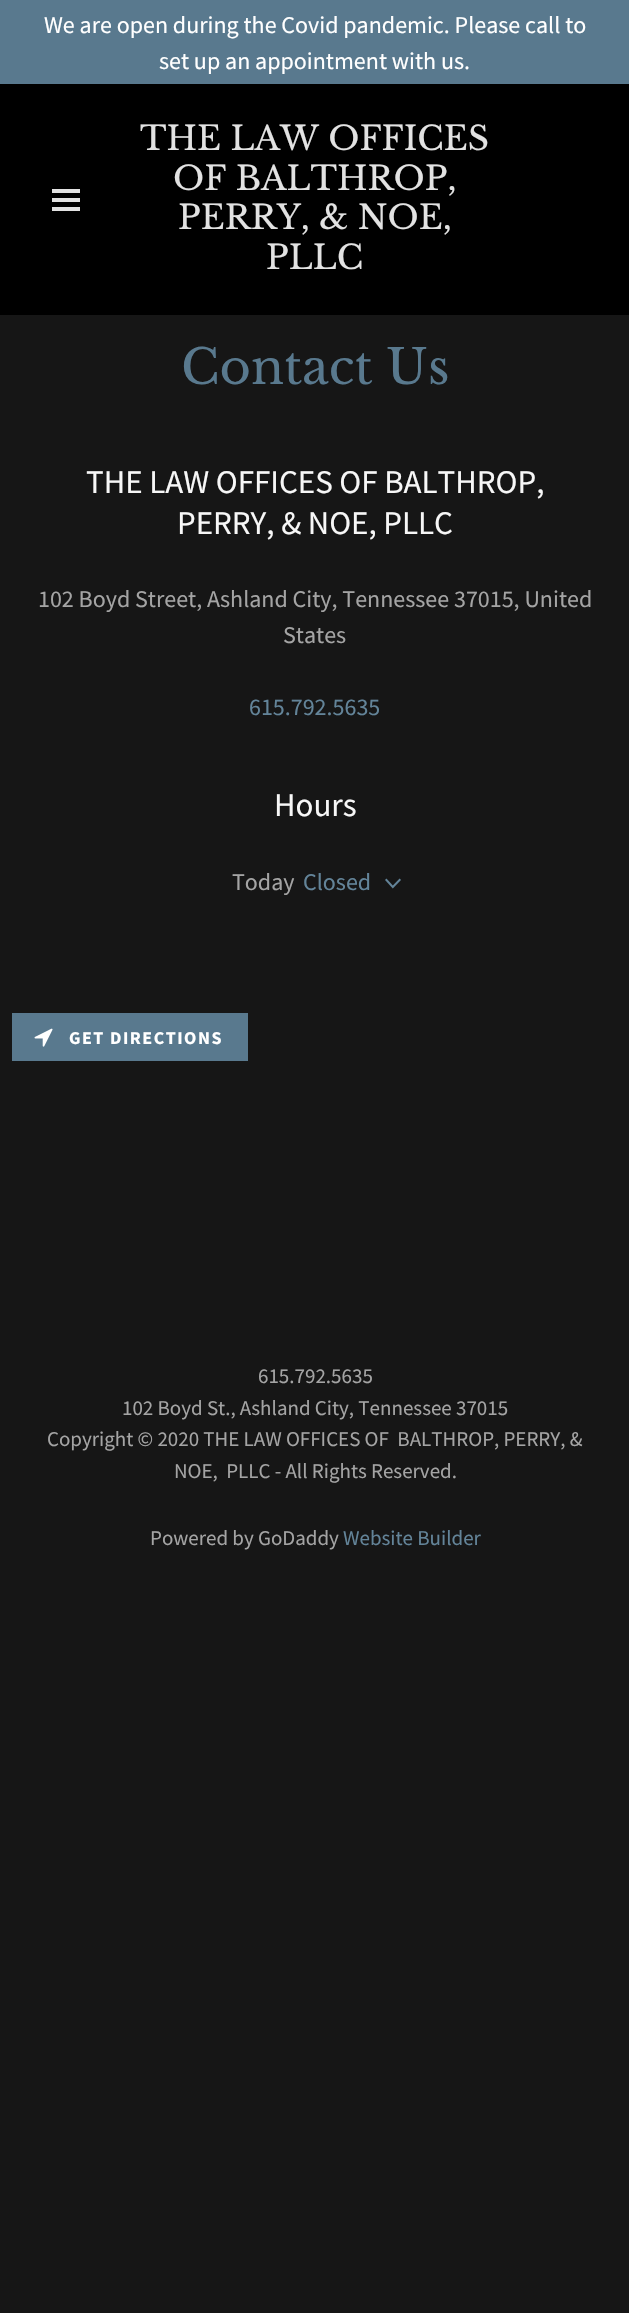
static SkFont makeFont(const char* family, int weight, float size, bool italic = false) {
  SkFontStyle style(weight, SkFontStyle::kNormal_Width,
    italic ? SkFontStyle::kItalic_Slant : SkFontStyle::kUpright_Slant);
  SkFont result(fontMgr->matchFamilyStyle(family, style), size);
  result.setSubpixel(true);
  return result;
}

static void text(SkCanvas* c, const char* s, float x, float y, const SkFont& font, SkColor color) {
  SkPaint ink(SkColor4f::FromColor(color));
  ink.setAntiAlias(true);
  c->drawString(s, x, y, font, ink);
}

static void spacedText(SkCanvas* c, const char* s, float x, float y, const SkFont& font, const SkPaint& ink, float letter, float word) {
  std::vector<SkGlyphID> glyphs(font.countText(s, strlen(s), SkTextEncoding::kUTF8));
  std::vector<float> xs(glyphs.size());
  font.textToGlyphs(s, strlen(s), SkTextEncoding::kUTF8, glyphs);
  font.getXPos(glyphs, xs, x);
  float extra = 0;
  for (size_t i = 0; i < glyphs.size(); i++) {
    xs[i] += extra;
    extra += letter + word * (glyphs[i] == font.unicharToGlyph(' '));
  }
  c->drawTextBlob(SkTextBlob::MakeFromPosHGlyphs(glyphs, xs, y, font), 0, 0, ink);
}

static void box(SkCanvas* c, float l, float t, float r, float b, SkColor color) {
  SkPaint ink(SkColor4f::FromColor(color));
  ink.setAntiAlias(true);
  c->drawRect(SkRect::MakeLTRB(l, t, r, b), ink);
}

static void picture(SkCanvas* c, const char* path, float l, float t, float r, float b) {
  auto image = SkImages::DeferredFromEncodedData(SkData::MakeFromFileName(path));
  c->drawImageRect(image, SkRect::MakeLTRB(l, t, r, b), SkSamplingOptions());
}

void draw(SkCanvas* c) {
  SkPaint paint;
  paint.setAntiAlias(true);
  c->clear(0xff161616);
  box(c, 0, 0, 629, 84, 0xff59798e);
  SkFont face1 = makeFont("Source Sans Pro", 400, 24);
  text(c, "We are open during the Covid pandemic. Please call to", 44, 33, face1, 0xffffffff);
  text(c, "set up an appointment with us.", 159, 69, face1, 0xffffffff);
  box(c, 0, 84, 629, 315, 0xff000000);
  box(c, 52, 189, 80, 193, 0xffe2e2e2);
  box(c, 52, 198, 80, 202, 0xffe2e2e2);
  box(c, 52, 207, 80, 211, 0xffe2e2e2);
  SkFont face2 = makeFont("Libre Baskerville", 400, 33);
  text(c, "THE LAW OFFICES", 140, 150, face2, 0xffe2e2e2);
  text(c, "OF BALTHROP,", 173, 190, face2, 0xffe2e2e2);
  text(c, "PERRY, & NOE,", 178, 229, face2, 0xffe2e2e2);
  text(c, "PLLC", 266, 269, face2, 0xffe2e2e2);
  SkFont face3 = makeFont("Libre Baskerville", 400, 48);
  text(c, "Contact Us", 181, 384, face3, 0xff59798e);
  SkFont face4 = makeFont("Source Sans Pro", 400, 33);
  text(c, "THE LAW OFFICES OF BALTHROP,", 86, 493, face4, 0xfff7f7f7);
  text(c, "PERRY, & NOE, PLLC", 177, 534, face4, 0xfff7f7f7);
  text(c, "102 Boyd Street, Ashland City, Tennessee 37015, United", 38, 607, face1, 0xffa4a4a4);
  text(c, "States", 283, 643, face1, 0xffa4a4a4);
  text(c, "615.792.5635", 249, 715, face1, 0xff638499);
  text(c, "Hours", 274, 816, face4, 0xfff7f7f7);
  text(c, "Today", 232, 890, face1, 0xffa4a4a4);
  text(c, "Closed", 303, 890, face1, 0xff638499);
  picture(c, "img_01.png", 385, 878, 401, 889);
  box(c, 12, 1013, 248, 1061, 0xff59798e);
  picture(c, "img_02.png", 34, 1028, 53, 1047);
  SkFont face5 = makeFont("Source Sans Pro", 700, 18);
  paint.setColor(0xffffffff);
  spacedText(c, "GET DIRECTIONS", 69, 1044, face5, paint, 1.5f, 0);
  SkFont face6 = makeFont("Source Sans Pro", 400, 21);
  text(c, "615.792.5635", 258, 1383, face6, 0xffa4a4a4);
  text(c, "102 Boyd St., Ashland City, Tennessee 37015", 122, 1415, face6, 0xffa4a4a4);
  text(c, "Copyright © 2020 THE LAW OFFICES OF  BALTHROP, PERRY, &", 47, 1446, face6, 0xffa4a4a4);
  text(c, "NOE,  PLLC - All Rights Reserved.", 174, 1478, face6, 0xffa4a4a4);
  text(c, "Powered by GoDaddy", 150, 1545, face6, 0xffa4a4a4);
  text(c, "Website Builder", 343, 1545, face6, 0xff638499);
}
